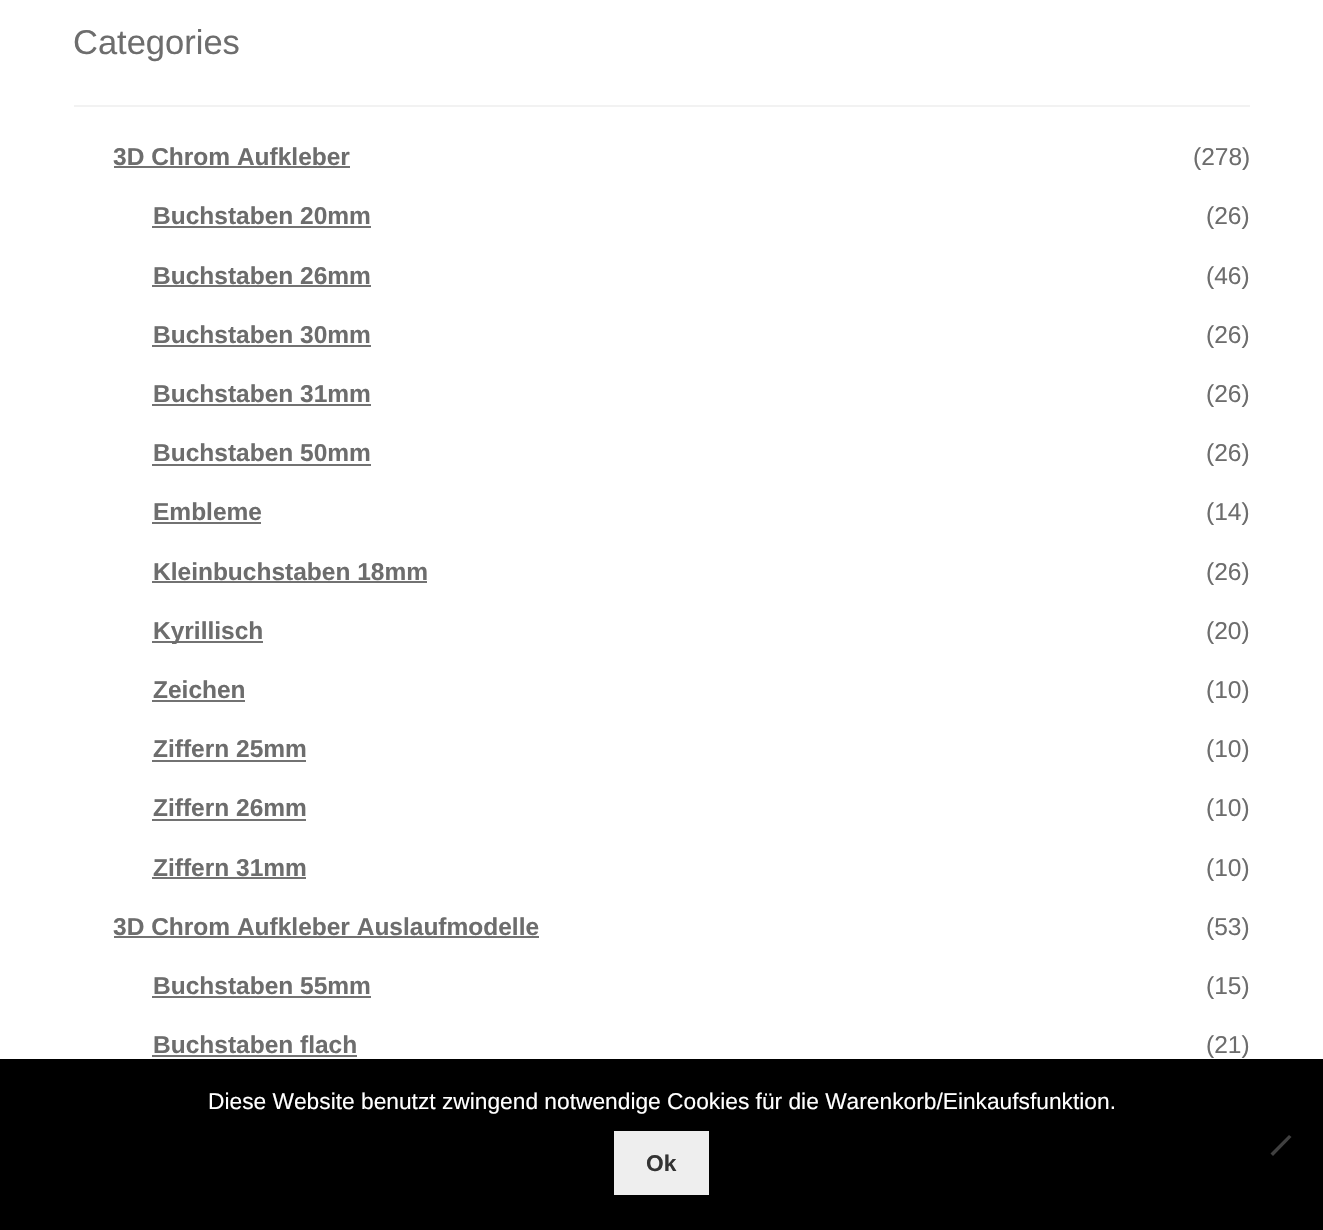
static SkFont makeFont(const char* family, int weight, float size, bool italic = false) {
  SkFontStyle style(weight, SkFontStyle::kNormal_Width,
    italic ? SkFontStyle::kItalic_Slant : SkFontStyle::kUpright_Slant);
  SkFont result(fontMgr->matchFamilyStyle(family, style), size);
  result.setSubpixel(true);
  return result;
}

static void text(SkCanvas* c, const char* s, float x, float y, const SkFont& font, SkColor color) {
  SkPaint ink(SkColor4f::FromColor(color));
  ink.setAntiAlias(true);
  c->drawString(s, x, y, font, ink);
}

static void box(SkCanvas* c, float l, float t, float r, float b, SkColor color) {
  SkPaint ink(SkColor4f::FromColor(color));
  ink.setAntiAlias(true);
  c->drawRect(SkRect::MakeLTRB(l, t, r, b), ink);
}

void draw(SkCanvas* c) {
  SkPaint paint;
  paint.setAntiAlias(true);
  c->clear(0xffffffff);
  box(c, 74, 105, 1250, 107, 0xfff2f2f2);
  SkFont face1 = makeFont("Liberation Sans", 400, 34.5f);
  text(c, "Categories", 73, 54, face1, 0xff6d6d6d);
  SkFont face2 = makeFont("Liberation Sans", 700, 24.5f);
  text(c, "3D Chrom Aufkleber", 113, 165, face2, 0xff6d6d6d);
  box(c, 114, 166, 350, 168, 0xff727272);
  SkFont face3 = makeFont("Liberation Sans", 400, 24.5f);
  text(c, "(278)", 1193, 165, face3, 0xff6d6d6d);
  text(c, "Buchstaben 20mm", 153, 224, face2, 0xff6d6d6d);
  box(c, 152, 226, 371, 228, 0xff727272);
  text(c, "(26)", 1206, 224, face3, 0xff6d6d6d);
  text(c, "Buchstaben 26mm", 153, 284, face2, 0xff6d6d6d);
  box(c, 152, 285, 371, 287, 0xff727272);
  text(c, "(46)", 1206, 284, face3, 0xff6d6d6d);
  text(c, "Buchstaben 30mm", 153, 343, face2, 0xff6d6d6d);
  box(c, 152, 345, 371, 347, 0xff727272);
  text(c, "(26)", 1206, 343, face3, 0xff6d6d6d);
  text(c, "Buchstaben 31mm", 153, 402, face2, 0xff6d6d6d);
  box(c, 152, 404, 371, 406, 0xff727272);
  text(c, "(26)", 1206, 402, face3, 0xff6d6d6d);
  text(c, "Buchstaben 50mm", 153, 461, face2, 0xff6d6d6d);
  box(c, 152, 464, 371, 466, 0xff727272);
  text(c, "(26)", 1206, 461, face3, 0xff6d6d6d);
  text(c, "Embleme", 153, 520, face2, 0xff6d6d6d);
  box(c, 152, 522, 261, 524, 0xff727272);
  text(c, "(14)", 1206, 520, face3, 0xff6d6d6d);
  text(c, "Kleinbuchstaben 18mm", 153, 580, face2, 0xff6d6d6d);
  box(c, 152, 581, 427, 583, 0xff727272);
  text(c, "(26)", 1206, 580, face3, 0xff6d6d6d);
  box(c, 152, 641, 263, 643, 0xff727272);
  text(c, "Kyrillisch", 153, 639, face2, 0xff6d6d6d);
  text(c, "(20)", 1206, 639, face3, 0xff6d6d6d);
  text(c, "Zeichen", 153, 698, face2, 0xff6d6d6d);
  box(c, 152, 700, 245, 702, 0xff727272);
  text(c, "(10)", 1206, 698, face3, 0xff6d6d6d);
  text(c, "Ziffern 25mm", 153, 757, face2, 0xff6d6d6d);
  box(c, 152, 760, 306, 762, 0xff727272);
  text(c, "(10)", 1206, 757, face3, 0xff6d6d6d);
  text(c, "Ziffern 26mm", 153, 816, face2, 0xff6d6d6d);
  box(c, 152, 819, 306, 821, 0xff727272);
  text(c, "(10)", 1206, 816, face3, 0xff6d6d6d);
  text(c, "Ziffern 31mm", 153, 876, face2, 0xff6d6d6d);
  box(c, 152, 877, 306, 879, 0xff727272);
  text(c, "(10)", 1206, 876, face3, 0xff6d6d6d);
  text(c, "3D Chrom Aufkleber Auslaufmodelle", 113, 935, face2, 0xff6d6d6d);
  box(c, 114, 936, 539, 938, 0xff727272);
  text(c, "(53)", 1206, 935, face3, 0xff6d6d6d);
  text(c, "Buchstaben 55mm", 153, 994, face2, 0xff6d6d6d);
  box(c, 152, 996, 371, 998, 0xff727272);
  text(c, "(15)", 1206, 994, face3, 0xff6d6d6d);
  text(c, "Buchstaben flach", 153, 1053, face2, 0xff6d6d6d);
  box(c, 152, 1055, 357, 1057, 0xff727272);
  text(c, "(21)", 1206, 1053, face3, 0xff6d6d6d);
  box(c, 0, 1059, 1323, 1230, 0xff000000);
  SkFont face4 = makeFont("Liberation Sans", 400, 22.75f);
  text(c, "Diese Website benutzt zwingend notwendige Cookies für die Warenkorb/Einkaufsfunktion.", 208, 1109, face4, 0xffffffff);
  paint.setColor(0xff404040);
  c->drawPath(SkPathBuilder().moveTo(1289, 1135).lineTo(1291.5f, 1137).lineTo(1273, 1156).lineTo(1270.5f, 1153.5f).close().detach(), paint);
  box(c, 614, 1131, 709, 1195, 0xffeeeeee);
  SkFont face5 = makeFont("Liberation Sans", 700, 22.75f);
  text(c, "Ok", 646, 1171, face5, 0xff333333);
}
